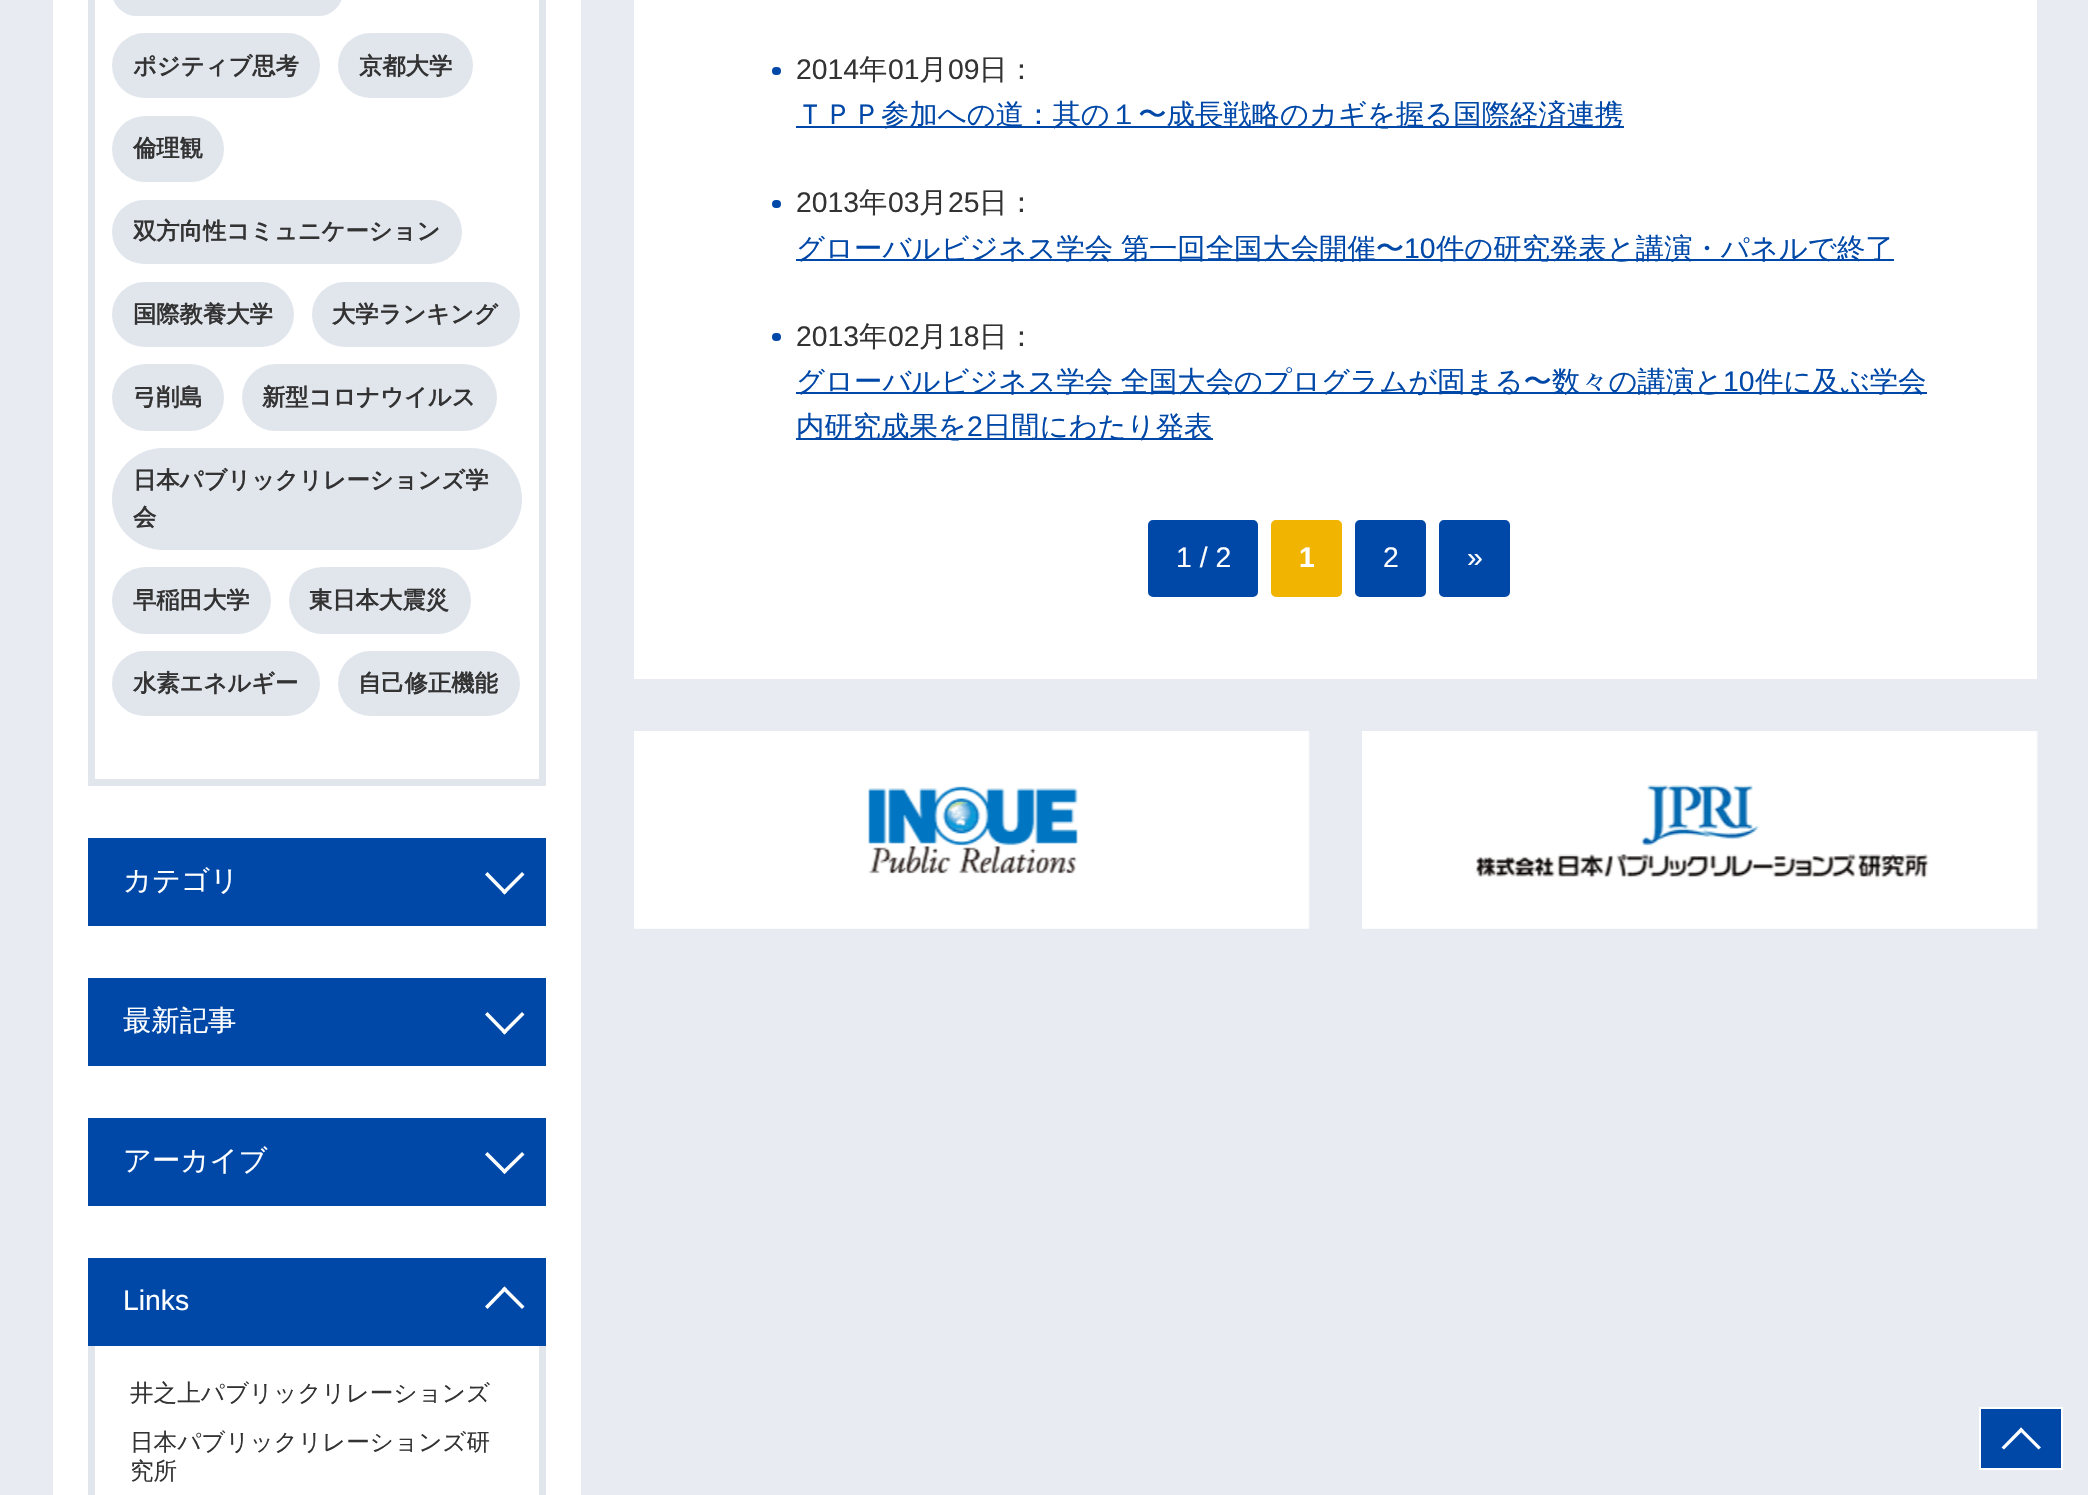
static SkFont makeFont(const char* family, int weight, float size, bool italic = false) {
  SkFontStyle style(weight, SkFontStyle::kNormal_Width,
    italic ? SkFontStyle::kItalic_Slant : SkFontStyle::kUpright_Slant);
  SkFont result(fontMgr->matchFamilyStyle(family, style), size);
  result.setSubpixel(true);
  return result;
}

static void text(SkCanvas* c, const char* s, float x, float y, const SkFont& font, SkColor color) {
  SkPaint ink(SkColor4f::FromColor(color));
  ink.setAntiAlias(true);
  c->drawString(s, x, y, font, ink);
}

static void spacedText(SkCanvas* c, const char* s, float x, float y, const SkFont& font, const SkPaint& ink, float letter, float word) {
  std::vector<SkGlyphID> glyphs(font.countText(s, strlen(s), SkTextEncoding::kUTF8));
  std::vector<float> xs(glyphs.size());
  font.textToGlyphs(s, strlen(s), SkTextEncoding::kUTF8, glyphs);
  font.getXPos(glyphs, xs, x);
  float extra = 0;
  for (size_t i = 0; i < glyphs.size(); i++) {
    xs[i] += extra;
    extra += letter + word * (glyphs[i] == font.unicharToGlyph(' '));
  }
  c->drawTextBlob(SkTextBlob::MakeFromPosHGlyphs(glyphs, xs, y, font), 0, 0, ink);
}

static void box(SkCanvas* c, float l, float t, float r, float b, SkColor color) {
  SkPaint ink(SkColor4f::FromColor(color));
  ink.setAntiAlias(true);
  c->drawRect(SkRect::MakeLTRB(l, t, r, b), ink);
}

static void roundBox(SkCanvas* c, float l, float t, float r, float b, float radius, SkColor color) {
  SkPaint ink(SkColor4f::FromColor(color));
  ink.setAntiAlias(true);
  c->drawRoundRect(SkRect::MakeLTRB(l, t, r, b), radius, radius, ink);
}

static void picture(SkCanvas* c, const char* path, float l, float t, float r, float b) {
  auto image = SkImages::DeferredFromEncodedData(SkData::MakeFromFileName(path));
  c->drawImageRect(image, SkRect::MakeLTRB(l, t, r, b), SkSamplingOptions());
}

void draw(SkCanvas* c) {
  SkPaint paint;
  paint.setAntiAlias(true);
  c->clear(0xffe8ecf2);
  box(c, 53, 0, 581, 1495, 0xffffffff);
  paint.setStyle(SkPaint::kStroke_Style);
  paint.setStrokeWidth(7);
  paint.setColor(0xffe1e6ed);
  c->drawRect(SkRect::MakeLTRB(91.5f, -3.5f, 542.5f, 782.5f), paint);
  roundBox(c, 112, -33, 343, 16, 32.5f, 0xffe1e6ed);
  roundBox(c, 112, 33, 320, 98, 32.5f, 0xffe1e6ed);
  SkFont face1 = makeFont("WenQuanYi Zen Hei", 700, 23.3f);
  text(c, "ポジティブ思考", 133, 74, face1, 0xff333333);
  roundBox(c, 338, 33, 473, 98, 32.5f, 0xffe1e6ed);
  text(c, "京都大学", 359, 74, face1, 0xff333333);
  roundBox(c, 112, 116, 224, 182, 33, 0xffe1e6ed);
  text(c, "倫理観", 133, 156, face1, 0xff333333);
  roundBox(c, 112, 200, 462, 264, 32, 0xffe1e6ed);
  text(c, "双方向性コミュニケーション", 133, 239, face1, 0xff333333);
  roundBox(c, 112, 282, 294, 347, 32.5f, 0xffe1e6ed);
  text(c, "国際教養大学", 133, 322, face1, 0xff333333);
  roundBox(c, 312, 282, 520, 347, 32.5f, 0xffe1e6ed);
  text(c, "大学ランキング", 332, 322, face1, 0xff333333);
  roundBox(c, 112, 364, 224, 431, 33.5f, 0xffe1e6ed);
  text(c, "弓削島", 133, 405, face1, 0xff333333);
  roundBox(c, 242, 364, 497, 431, 33.5f, 0xffe1e6ed);
  text(c, "新型コロナウイルス", 262, 405, face1, 0xff333333);
  roundBox(c, 112, 448, 522, 550, 51, 0xffe1e6ed);
  text(c, "日本パブリックリレーションズ学", 133, 488, face1, 0xff333333);
  text(c, "会", 133, 525, face1, 0xff333333);
  roundBox(c, 112, 567, 271, 634, 33.5f, 0xffe1e6ed);
  text(c, "早稲田大学", 133, 608, face1, 0xff333333);
  roundBox(c, 289, 567, 471, 634, 33.5f, 0xffe1e6ed);
  text(c, "東日本大震災", 309, 608, face1, 0xff333333);
  roundBox(c, 112, 651, 320, 716, 32.5f, 0xffe1e6ed);
  text(c, "水素エネルギー", 133, 691, face1, 0xff333333);
  roundBox(c, 338, 651, 520, 716, 32.5f, 0xffe1e6ed);
  text(c, "自己修正機能", 358, 691, face1, 0xff333333);
  box(c, 88, 838, 546, 926, 0xff0048a8);
  SkFont face2 = makeFont("WenQuanYi Zen Hei", 500, 28.35f);
  text(c, "カテゴリ", 123, 890, face2, 0xffffffff);
  paint.setStyle(SkPaint::kFill_Style);
  paint.setColor(0xffffffff);
  c->drawPath(SkPathBuilder().moveTo(522, 872).lineTo(524.5f, 874.5f).lineTo(504.5f, 894.5f).lineTo(502, 892).close().detach(), paint);
  c->drawPath(SkPathBuilder().moveTo(487.5f, 872).lineTo(507, 892).lineTo(504.5f, 894.5f).lineTo(485, 874.5f).close().detach(), paint);
  box(c, 88, 978, 546, 1066, 0xff0048a8);
  text(c, "最新記事", 123, 1030, face2, 0xffffffff);
  c->drawPath(SkPathBuilder().moveTo(522, 1012).lineTo(524.5f, 1014.5f).lineTo(504.5f, 1034.5f).lineTo(502, 1032).close().detach(), paint);
  c->drawPath(SkPathBuilder().moveTo(487.5f, 1012).lineTo(507, 1032).lineTo(504.5f, 1034.5f).lineTo(485, 1014.5f).close().detach(), paint);
  box(c, 88, 1118, 546, 1206, 0xff0048a8);
  text(c, "アーカイブ", 123, 1170, face2, 0xffffffff);
  c->drawPath(SkPathBuilder().moveTo(522, 1152).lineTo(524.5f, 1154.5f).lineTo(504.5f, 1174).lineTo(502, 1171.5f).close().detach(), paint);
  c->drawPath(SkPathBuilder().moveTo(487.5f, 1152).lineTo(507, 1171.5f).lineTo(504.5f, 1174).lineTo(485, 1154.5f).close().detach(), paint);
  box(c, 88, 1258, 546, 1346, 0xff0048a8);
  SkFont face3 = makeFont("Liberation Sans", 400, 28.35f);
  text(c, "Links", 123, 1310, face3, 0xffffffff);
  c->drawPath(SkPathBuilder().moveTo(487.5f, 1309).lineTo(485, 1306.5f).lineTo(504.5f, 1286.5f).lineTo(507, 1289).close().detach(), paint);
  c->drawPath(SkPathBuilder().moveTo(522, 1309).lineTo(502, 1289).lineTo(504.5f, 1286.5f).lineTo(524.5f, 1306.5f).close().detach(), paint);
  box(c, 539, 1346, 546, 1495, 0xffe1e6ed);
  box(c, 88, 1346, 95, 1495, 0xffe1e6ed);
  SkFont face4 = makeFont("WenQuanYi Zen Hei", 500, 23.6f);
  text(c, "井之上パブリックリレーションズ", 130, 1401, face4, 0xff333333);
  text(c, "日本パブリックリレーションズ研", 130, 1450, face4, 0xff333333);
  text(c, "究所", 130, 1479, face4, 0xff333333);
  box(c, 634, 0, 2037, 679, 0xffffffff);
  roundBox(c, 772, 67, 781, 75, 4, 0xff0048a8);
  text(c, "2014", 796, 79, face3, 0xff333333);
  text(c, "年", 859, 79, face2, 0xff333333);
  text(c, "01", 888, 79, face3, 0xff333333);
  text(c, "月", 919, 79, face2, 0xff333333);
  text(c, "09", 948, 79, face3, 0xff333333);
  text(c, "日：", 979, 79, face2, 0xff333333);
  box(c, 796, 126, 1624, 128, 0xff0048a8);
  text(c, "ＴＰＰ参加への道：其の１〜成長戦略のカギを握る国際経済連携", 796, 124, face2, 0xff0048a8);
  roundBox(c, 772, 200, 781, 208, 4, 0xff0048a8);
  text(c, "2013", 796, 212, face3, 0xff333333);
  text(c, "年", 859, 212, face2, 0xff333333);
  text(c, "03", 888, 212, face3, 0xff333333);
  text(c, "月", 919, 212, face2, 0xff333333);
  text(c, "25", 948, 212, face3, 0xff333333);
  text(c, "日：", 979, 212, face2, 0xff333333);
  box(c, 796, 259, 1894, 261, 0xff0048a8);
  paint.setColor(0xff0048a8);
  spacedText(c, "グローバルビジネス学会 第一回全国大会開催〜", 796, 258, face2, paint, 0, -1);
  text(c, "10", 1404, 258, face3, 0xff0048a8);
  text(c, "件の研究発表と講演・パネルで終了", 1436, 258, face2, 0xff0048a8);
  roundBox(c, 772, 333, 781, 341, 4, 0xff0048a8);
  text(c, "2013", 796, 346, face3, 0xff333333);
  text(c, "年", 859, 346, face2, 0xff333333);
  text(c, "02", 888, 346, face3, 0xff333333);
  text(c, "月", 919, 346, face2, 0xff333333);
  text(c, "18", 948, 346, face3, 0xff333333);
  text(c, "日：", 979, 346, face2, 0xff333333);
  box(c, 796, 392, 1927, 394, 0xff0048a8);
  spacedText(c, "グローバルビジネス学会 全国大会のプログラムが固まる〜数々の講演と", 796, 391, face2, paint, 0, -1);
  text(c, "10", 1723, 391, face3, 0xff0048a8);
  text(c, "件に及ぶ学会", 1755, 391, face2, 0xff0048a8);
  box(c, 796, 438, 1213, 440, 0xff0048a8);
  text(c, "内研究成果を", 796, 436, face2, 0xff0048a8);
  text(c, "2", 967, 436, face3, 0xff0048a8);
  text(c, "日間にわたり発表", 983, 436, face2, 0xff0048a8);
  c->drawRoundRect(SkRect::MakeLTRB(1149, 521, 1257, 596), 4, 4, paint);
  paint.setStyle(SkPaint::kStroke_Style);
  paint.setStrokeWidth(2);
  c->drawRoundRect(SkRect::MakeLTRB(1149, 521, 1257, 596), 4, 4, paint);
  text(c, "1 / 2", 1176, 567, face3, 0xffffffff);
  paint.setStyle(SkPaint::kFill_Style);
  paint.setColor(0xfff0b401);
  c->drawRoundRect(SkRect::MakeLTRB(1272, 521, 1341, 596), 4, 4, paint);
  paint.setStyle(SkPaint::kStroke_Style);
  c->drawRoundRect(SkRect::MakeLTRB(1272, 521, 1341, 596), 4, 4, paint);
  SkFont face5 = makeFont("Liberation Sans", 700, 28.35f);
  text(c, "1", 1299, 567, face5, 0xffffffff);
  paint.setStyle(SkPaint::kFill_Style);
  paint.setColor(0xff0048a8);
  c->drawRoundRect(SkRect::MakeLTRB(1356, 521, 1425, 596), 4, 4, paint);
  paint.setStyle(SkPaint::kStroke_Style);
  c->drawRoundRect(SkRect::MakeLTRB(1356, 521, 1425, 596), 4, 4, paint);
  text(c, "2", 1383, 567, face3, 0xffffffff);
  paint.setStyle(SkPaint::kFill_Style);
  c->drawRoundRect(SkRect::MakeLTRB(1440, 521, 1509, 596), 4, 4, paint);
  paint.setStyle(SkPaint::kStroke_Style);
  c->drawRoundRect(SkRect::MakeLTRB(1440, 521, 1509, 596), 4, 4, paint);
  text(c, "»", 1467, 567, face3, 0xffffffff);
  picture(c, "img_01.png", 634, 731, 1310, 929);
  picture(c, "img_02.png", 1362, 731, 2038, 929);
  paint.setStyle(SkPaint::kFill_Style);
  c->drawRect(SkRect::MakeLTRB(1980, 1408, 2062, 1469), paint);
  paint.setStyle(SkPaint::kStroke_Style);
  paint.setColor(0xffffffff);
  c->drawRect(SkRect::MakeLTRB(1980, 1408, 2062, 1469), paint);
  paint.setStyle(SkPaint::kFill_Style);
  c->drawPath(SkPathBuilder().moveTo(2004, 1449.5f).lineTo(2001.5f, 1447.5f).lineTo(2021, 1427.5f).lineTo(2023.5f, 1430).close().detach(), paint);
  c->drawPath(SkPathBuilder().moveTo(2038.5f, 1449.5f).lineTo(2019, 1430).lineTo(2021, 1427.5f).lineTo(2041, 1447.5f).close().detach(), paint);
}
